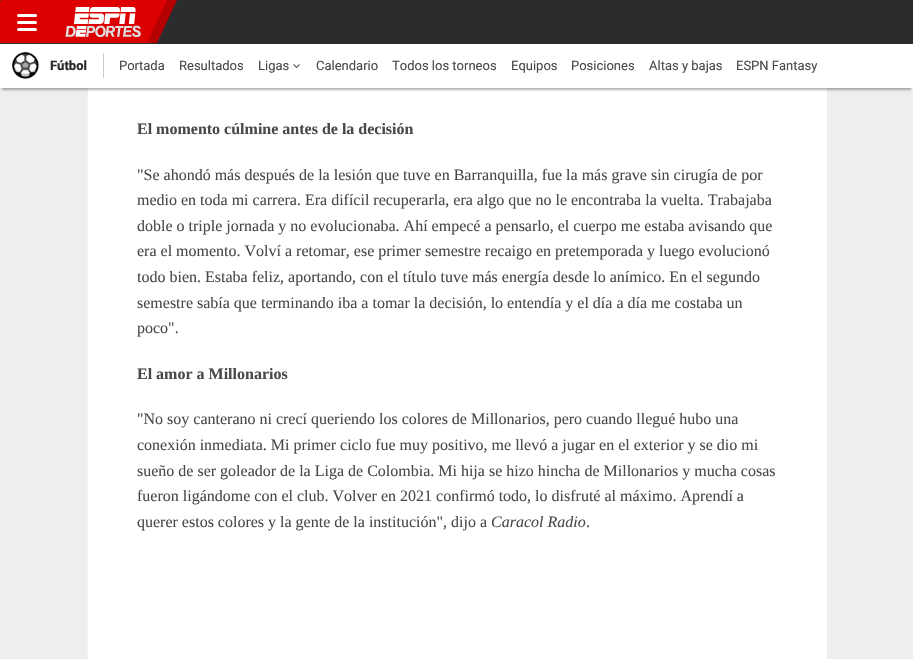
static SkFont makeFont(const char* family, int weight, float size, bool italic = false) {
  SkFontStyle style(weight, SkFontStyle::kNormal_Width,
    italic ? SkFontStyle::kItalic_Slant : SkFontStyle::kUpright_Slant);
  SkFont result(fontMgr->matchFamilyStyle(family, style), size);
  result.setSubpixel(true);
  return result;
}

static void text(SkCanvas* c, const char* s, float x, float y, const SkFont& font, SkColor color) {
  SkPaint ink(SkColor4f::FromColor(color));
  ink.setAntiAlias(true);
  c->drawString(s, x, y, font, ink);
}

static void box(SkCanvas* c, float l, float t, float r, float b, SkColor color) {
  SkPaint ink(SkColor4f::FromColor(color));
  ink.setAntiAlias(true);
  c->drawRect(SkRect::MakeLTRB(l, t, r, b), ink);
}

static void roundBox(SkCanvas* c, float l, float t, float r, float b, float radius, SkColor color) {
  SkPaint ink(SkColor4f::FromColor(color));
  ink.setAntiAlias(true);
  c->drawRoundRect(SkRect::MakeLTRB(l, t, r, b), radius, radius, ink);
}

static void picture(SkCanvas* c, const char* path, float l, float t, float r, float b) {
  auto image = SkImages::DeferredFromEncodedData(SkData::MakeFromFileName(path));
  c->drawImageRect(image, SkRect::MakeLTRB(l, t, r, b), SkSamplingOptions());
}

void draw(SkCanvas* c) {
  SkPaint paint;
  paint.setAntiAlias(true);
  c->clear(0xffedeef0);
  box(c, 0, 0, 913, 44, 0xff2b2c2d);
  paint.setColor(0xffb40000);
  c->drawPath(SkPathBuilder().moveTo(54, 0).lineTo(177, 0).lineTo(157, 43).lineTo(34, 43).close().detach(), paint);
  paint.setColor(0xffdd0000);
  c->drawPath(SkPathBuilder().moveTo(1, 0).lineTo(167, 0).lineTo(147, 43).lineTo(-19, 43).close().detach(), paint);
  picture(c, "img_01.png", 65, 7, 141, 37);
  roundBox(c, 17, 21, 37, 24, 1.5f, 0xffffffff);
  roundBox(c, 17, 14, 37, 17, 1.5f, 0xffffffff);
  roundBox(c, 17, 28, 37, 31, 1.5f, 0xffffffff);
  box(c, 87, 88, 88, 659, 0xfff1f2f3);
  box(c, 88, 88, 827, 659, 0xffffffff);
  paint.setColor(0x4d000000);
  paint.setMaskFilter(SkMaskFilter::MakeBlur(kNormal_SkBlurStyle, 1));
  c->drawRect(SkRect::MakeLTRB(2, 50, 911, 90), paint);
  paint.setMaskFilter(nullptr);
  roundBox(c, 0, 44, 913, 88, 1, 0xffffffff);
  picture(c, "img_02.png", 12, 52, 39, 79);
  SkFont face1 = makeFont("Roboto", 800, 13);
  text(c, "Fútbol", 50, 70, face1, 0xff2b2c2d);
  box(c, 103, 53, 104, 78, 0xffcbccce);
  SkFont face2 = makeFont("Roboto", 400, 13);
  text(c, "Portada", 119, 70, face2, 0xff48494a);
  text(c, "Resultados", 179, 70, face2, 0xff48494a);
  text(c, "Ligas", 258, 70, face2, 0xff48494a);
  picture(c, "img_03.png", 293, 64, 300, 69);
  text(c, "Calendario", 316, 70, face2, 0xff48494a);
  text(c, "Todos los torneos", 392, 70, face2, 0xff48494a);
  text(c, "Equipos", 511, 70, face2, 0xff48494a);
  text(c, "Posiciones", 571, 70, face2, 0xff48494a);
  text(c, "Altas y bajas", 649, 70, face2, 0xff48494a);
  text(c, "ESPN Fantasy", 736, 70, face2, 0xff48494a);
  SkFont face3 = makeFont("Liberation Serif", 700, 16);
  text(c, "El momento cúlmine antes de la decisión", 137, 134, face3, 0xff48494a);
  SkFont face4 = makeFont("Liberation Serif", 400, 16);
  text(c, "\"Se ahondó más después de la lesión que tuve en Barranquilla, fue la más grave sin cirugía de por", 137, 180, face4, 0xff48494a);
  text(c, "medio en toda mi carrera. Era difícil recuperarla, era algo que no le encontraba la vuelta. Trabajaba", 137, 205, face4, 0xff48494a);
  text(c, "doble o triple jornada y no evolucionaba. Ahí empecé a pensarlo, el cuerpo me estaba avisando que", 137, 231, face4, 0xff48494a);
  text(c, "era el momento. Volví a retomar, ese primer semestre recaigo en pretemporada y luego evolucionó", 137, 256, face4, 0xff48494a);
  text(c, "todo bien. Estaba feliz, aportando, con el título tuve más energía desde lo anímico. En el segundo", 137, 282, face4, 0xff48494a);
  text(c, "semestre sabía que terminando iba a tomar la decisión, lo entendía y el día a día me costaba un", 137, 308, face4, 0xff48494a);
  text(c, "poco\".", 137, 333, face4, 0xff48494a);
  text(c, "El amor a Millonarios", 137, 379, face3, 0xff48494a);
  text(c, "\"No soy canterano ni crecí queriendo los colores de Millonarios, pero cuando llegué hubo una", 137, 424, face4, 0xff48494a);
  text(c, "conexión inmediata. Mi primer ciclo fue muy positivo, me llevó a jugar en el exterior y se dio mi", 137, 450, face4, 0xff48494a);
  text(c, "sueño de ser goleador de la Liga de Colombia. Mi hija se hizo hincha de Millonarios y mucha cosas", 137, 476, face4, 0xff48494a);
  text(c, "fueron ligándome con el club. Volver en 2021 confirmó todo, lo disfruté al máximo. Aprendí a", 137, 501, face4, 0xff48494a);
  text(c, "querer estos colores y la gente de la institución\", dijo a", 137, 527, face4, 0xff48494a);
  SkFont face5 = makeFont("Liberation Serif", 400, 16, true);
  text(c, "Caracol Radio", 491, 527, face5, 0xff48494a);
  text(c, ".", 586, 527, face4, 0xff48494a);
}
